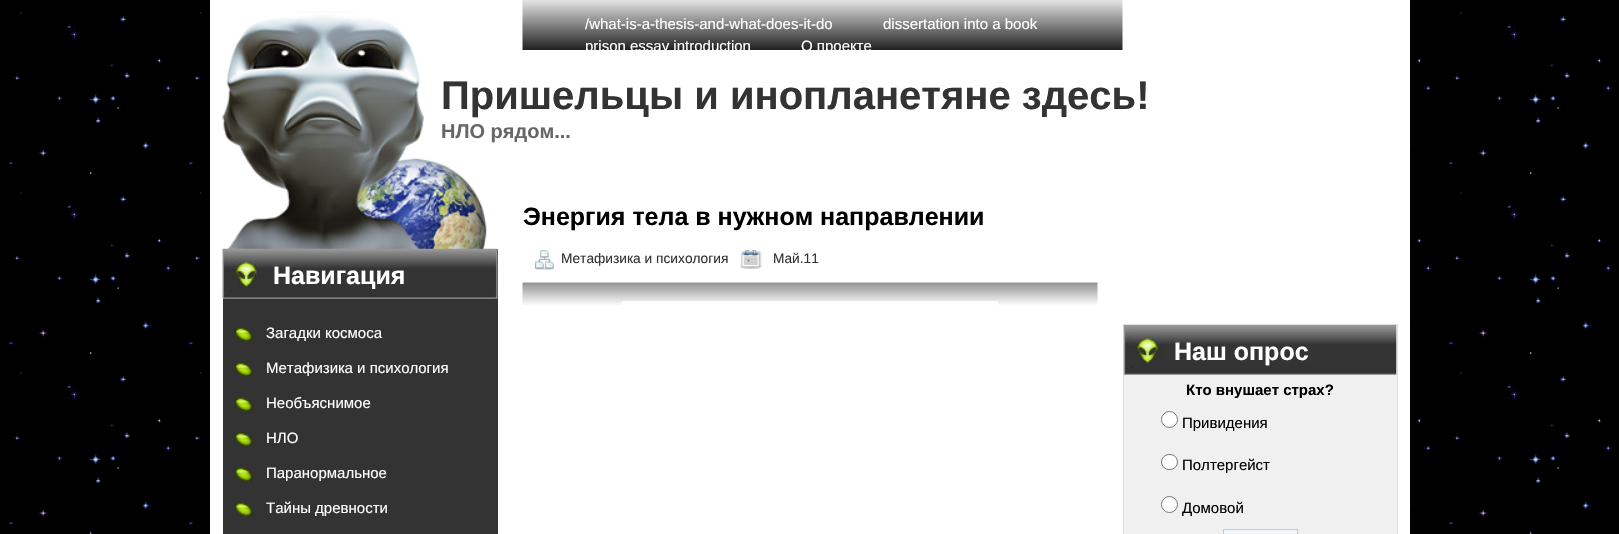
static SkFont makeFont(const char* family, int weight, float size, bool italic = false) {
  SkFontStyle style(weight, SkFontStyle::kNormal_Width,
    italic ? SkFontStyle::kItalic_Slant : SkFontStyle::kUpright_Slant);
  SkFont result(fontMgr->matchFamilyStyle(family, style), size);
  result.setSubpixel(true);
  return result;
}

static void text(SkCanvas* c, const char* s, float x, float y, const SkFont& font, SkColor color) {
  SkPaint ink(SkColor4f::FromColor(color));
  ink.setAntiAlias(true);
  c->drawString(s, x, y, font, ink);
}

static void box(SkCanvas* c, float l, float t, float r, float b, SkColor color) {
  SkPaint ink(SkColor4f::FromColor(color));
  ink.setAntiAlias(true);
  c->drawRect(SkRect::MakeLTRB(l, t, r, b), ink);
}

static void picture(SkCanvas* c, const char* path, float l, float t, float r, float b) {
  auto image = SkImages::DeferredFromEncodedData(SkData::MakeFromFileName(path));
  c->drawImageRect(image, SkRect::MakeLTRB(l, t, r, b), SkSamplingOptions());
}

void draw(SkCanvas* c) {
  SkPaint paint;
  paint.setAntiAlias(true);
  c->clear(0xffffffff);
  picture(c, "img_01.png", 0, 0, 1619, 534);
  box(c, 210, 0, 1410, 534, 0xffffffff);
  picture(c, "img_02.png", 522, 0, 1123, 50);
  SkFont face1 = makeFont("Liberation Sans", 400, 15);
  text(c, "/what-is-a-thesis-and-what-does-it-do", 585, 29, face1, 0xffffffff);
  text(c, "dissertation into a book", 883, 29, face1, 0xffffffff);
  text(c, "prison essay introduction", 585, 51, face1, 0xffffffff);
  text(c, "О проекте", 801, 51, face1, 0xffffffff);
  picture(c, "img_03.png", 222, 11, 487, 249);
  SkFont face2 = makeFont("Liberation Sans", 700, 40);
  text(c, "Пришельцы и инопланетяне здесь!", 441, 109, face2, 0xff333333);
  SkFont face3 = makeFont("Liberation Sans", 700, 20);
  text(c, "НЛО рядом...", 441, 138, face3, 0xff666666);
  box(c, 223, 249, 498, 534, 0xff333333);
  picture(c, "img_04.png", 222, 248, 498, 299);
  SkFont face4 = makeFont("Liberation Sans", 700, 25);
  text(c, "Навигация", 273, 284, face4, 0xffffffff);
  picture(c, "img_05.png", 235, 327, 253, 342);
  text(c, "Загадки космоса", 266, 338, face1, 0xffffffff);
  picture(c, "img_05.png", 235, 362, 253, 377);
  text(c, "Метафизика и психология", 266, 373, face1, 0xffffffff);
  picture(c, "img_05.png", 235, 397, 253, 412);
  text(c, "Необъяснимое", 266, 408, face1, 0xffffffff);
  picture(c, "img_05.png", 235, 432, 253, 447);
  text(c, "НЛО", 266, 443, face1, 0xffffffff);
  picture(c, "img_05.png", 235, 467, 253, 482);
  text(c, "Паранормальное", 266, 478, face1, 0xffffffff);
  picture(c, "img_05.png", 235, 502, 253, 517);
  text(c, "Тайны древности", 266, 513, face1, 0xffffffff);
  text(c, "Энергия тела в нужном направлении", 523, 225, face4, 0xff000000);
  picture(c, "img_06.png", 535, 250, 554, 270);
  SkFont face5 = makeFont("Liberation Sans", 400, 13.75f);
  text(c, "Метафизика и психология", 561, 263, face5, 0xff333333);
  picture(c, "img_07.png", 740, 250, 762, 269);
  text(c, "Май.11", 773, 263, face5, 0xff333333);
  picture(c, "img_08.png", 522, 282, 1098, 305);
  box(c, 622, 301, 998, 305, 0xffffffff);
  paint.setColor(0xfff0f0f0);
  c->drawRect(SkRect::MakeLTRB(1123.5f, 324.5f, 1397.5f, 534.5f), paint);
  paint.setStyle(SkPaint::kStroke_Style);
  paint.setStrokeWidth(1);
  paint.setColor(0xffe0e0e0);
  c->drawRect(SkRect::MakeLTRB(1123.5f, 324.5f, 1397.5f, 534.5f), paint);
  picture(c, "img_09.png", 1123, 325, 1397, 375);
  text(c, "Наш опрос", 1174, 360, face4, 0xffffffff);
  SkFont face6 = makeFont("Liberation Sans", 700, 15);
  text(c, "Кто внушает страх?", 1186, 395, face6, 0xff000000);
  paint.setStyle(SkPaint::kFill_Style);
  paint.setColor(0xffffffff);
  c->drawCircle(1169.5f, 419.5f, 8, paint);
  paint.setStyle(SkPaint::kStroke_Style);
  paint.setColor(0xff767676);
  c->drawCircle(1169.5f, 419.5f, 8, paint);
  text(c, "Привидения", 1182, 428, face1, 0xff000000);
  paint.setStyle(SkPaint::kFill_Style);
  paint.setColor(0xffffffff);
  c->drawRoundRect(SkRect::MakeLTRB(1161.5f, 454.5f, 1177.5f, 469.5f), 7.5f, 7.5f, paint);
  paint.setStyle(SkPaint::kStroke_Style);
  paint.setColor(0xff767676);
  c->drawRoundRect(SkRect::MakeLTRB(1161.5f, 454.5f, 1177.5f, 469.5f), 7.5f, 7.5f, paint);
  text(c, "Полтергейст", 1182, 470, face1, 0xff000000);
  paint.setStyle(SkPaint::kFill_Style);
  paint.setColor(0xffffffff);
  c->drawCircle(1169.5f, 504.5f, 8, paint);
  paint.setStyle(SkPaint::kStroke_Style);
  paint.setColor(0xff767676);
  c->drawCircle(1169.5f, 504.5f, 8, paint);
  text(c, "Домовой", 1182, 513, face1, 0xff000000);
  paint.setStyle(SkPaint::kFill_Style);
  paint.setColor(0xfff3f6f8);
  c->drawRect(SkRect::MakeLTRB(1223.5f, 529.5f, 1297.5f, 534.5f), paint);
  paint.setStyle(SkPaint::kStroke_Style);
  paint.setColor(0xffc8c8c8);
  c->drawRect(SkRect::MakeLTRB(1223.5f, 529.5f, 1297.5f, 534.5f), paint);
}
